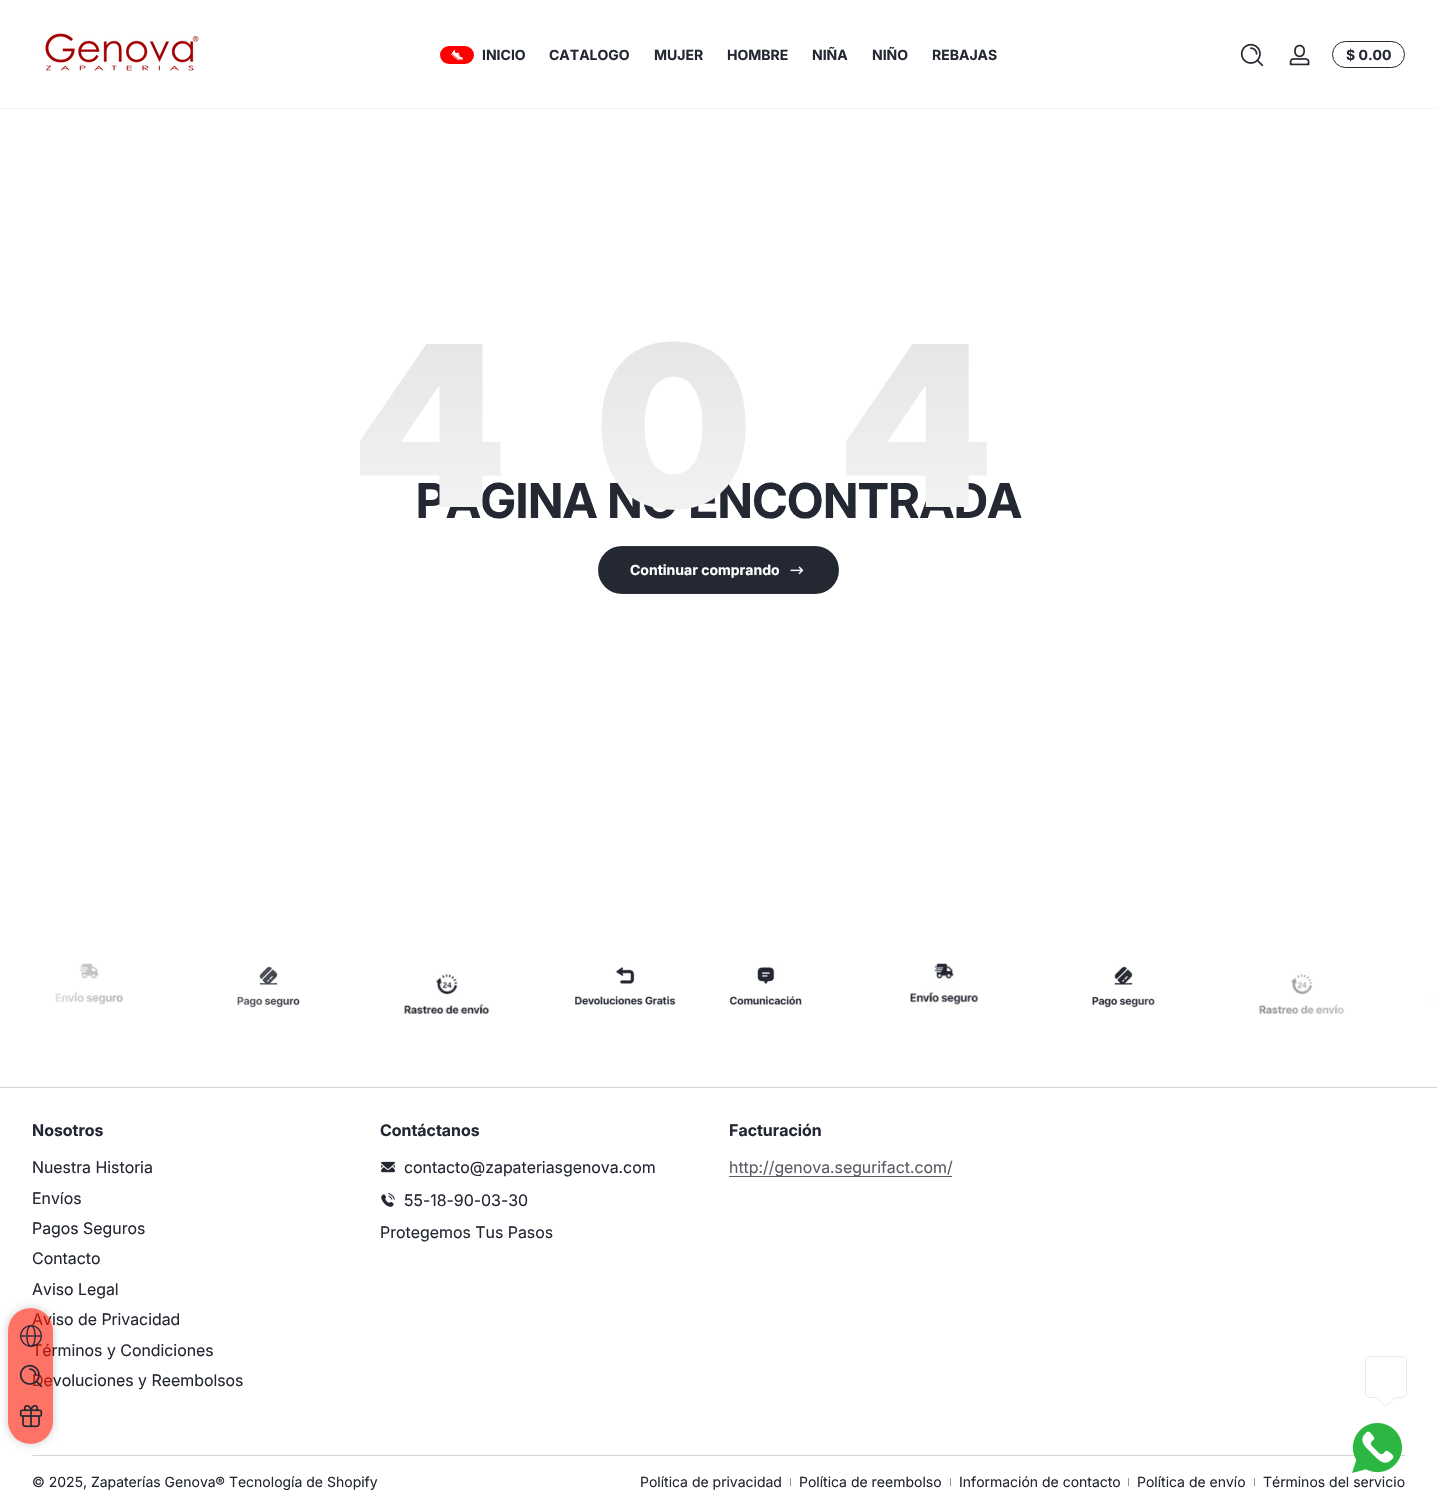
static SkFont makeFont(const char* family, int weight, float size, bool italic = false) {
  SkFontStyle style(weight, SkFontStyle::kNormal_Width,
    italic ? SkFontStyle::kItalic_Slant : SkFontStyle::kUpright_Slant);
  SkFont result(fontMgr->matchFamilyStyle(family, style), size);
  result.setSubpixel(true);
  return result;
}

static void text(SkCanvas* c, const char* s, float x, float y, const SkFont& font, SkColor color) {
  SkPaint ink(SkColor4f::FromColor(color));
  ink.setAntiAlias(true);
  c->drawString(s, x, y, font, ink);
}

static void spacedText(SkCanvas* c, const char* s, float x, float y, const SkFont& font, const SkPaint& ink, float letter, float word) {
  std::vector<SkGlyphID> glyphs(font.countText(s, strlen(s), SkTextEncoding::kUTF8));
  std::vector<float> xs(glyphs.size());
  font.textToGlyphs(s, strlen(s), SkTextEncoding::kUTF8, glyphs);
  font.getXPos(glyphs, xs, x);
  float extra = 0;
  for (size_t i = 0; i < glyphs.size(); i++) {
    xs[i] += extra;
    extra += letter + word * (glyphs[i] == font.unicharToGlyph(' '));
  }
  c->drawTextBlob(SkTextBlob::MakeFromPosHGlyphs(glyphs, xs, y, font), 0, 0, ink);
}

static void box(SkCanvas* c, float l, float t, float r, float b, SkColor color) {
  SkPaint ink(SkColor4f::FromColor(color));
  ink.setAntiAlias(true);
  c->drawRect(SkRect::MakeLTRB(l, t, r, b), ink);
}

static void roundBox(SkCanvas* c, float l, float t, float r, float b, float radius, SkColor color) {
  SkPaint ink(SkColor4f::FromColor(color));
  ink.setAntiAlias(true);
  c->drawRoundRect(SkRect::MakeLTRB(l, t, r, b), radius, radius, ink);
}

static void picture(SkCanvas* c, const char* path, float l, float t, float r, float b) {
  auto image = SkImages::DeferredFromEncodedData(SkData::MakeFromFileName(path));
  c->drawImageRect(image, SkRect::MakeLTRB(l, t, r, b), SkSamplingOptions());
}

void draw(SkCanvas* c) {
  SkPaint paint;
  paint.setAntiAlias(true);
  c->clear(0xffffffff);
  picture(c, "img_01.png", 45, 33, 199, 71);
  roundBox(c, 440, 46, 474, 64, 9, 0xffff0000);
  picture(c, "img_02.png", 451, 50, 463, 61);
  SkFont face1 = makeFont("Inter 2", 700, 14);
  text(c, "INICIO", 482, 60, face1, 0xff242833);
  text(c, "CATALOGO", 549, 60, face1, 0xff242833);
  text(c, "MUJER", 654, 60, face1, 0xff242833);
  text(c, "HOMBRE", 727, 60, face1, 0xff242833);
  text(c, "NIÑA", 812, 60, face1, 0xff242833);
  text(c, "NIÑO", 872, 60, face1, 0xff242833);
  text(c, "REBAJAS", 932, 60, face1, 0xff242833);
  picture(c, "img_03.png", 1240, 43, 1264, 67);
  picture(c, "img_04.png", 1289, 44, 1310, 66);
  paint.setStyle(SkPaint::kStroke_Style);
  paint.setStrokeWidth(1);
  paint.setColor(0xff242833);
  c->drawRoundRect(SkRect::MakeLTRB(1332.5f, 41.5f, 1404.5f, 67.5f), 13, 13, paint);
  text(c, "$ 0.00", 1346, 60, face1, 0xff242833);
  box(c, 0, 108, 1437, 109, 0xfff4f4f5);
  SkFont face2 = makeFont("Inter", 700, 48);
  text(c, "PÁGINA NO ENCONTRADA", 416, 518, face2, 0xff242833);
  SkFont face3 = makeFont("Inter", 900, 224);
  paint.setStyle(SkPaint::kFill_Style);
  {
    const SkColor colors[] = {0xffe0e1e2, 0xfff3f3f4};
    const float stops[] = {0, 0.81f};
    const SkPoint ends[] = {{719, 269}, {719, 583}};
    paint.setShader(SkGradientShader::MakeLinear(ends, colors, stops, 2, SkTileMode::kClamp));
    paint.setAlpha(255);
  }
  spacedText(c, "404", 353, 507, face3, paint, 89.5f, 0);
  roundBox(c, 598, 546, 839, 594, 24, 0xff242833);
  picture(c, "img_05.png", 790, 566, 804, 575);
  paint.setStyle(SkPaint::kStroke_Style);
  paint.setShader(nullptr);
  paint.setColor(0x0dffffff);
  c->drawRect(SkRect::MakeLTRB(598.5f, 546.5f, 838.5f, 593.5f), paint);
  text(c, "Continuar comprando", 630, 575, face1, 0xffffffff);
  picture(c, "img_06.png", 55, 962, 124, 1007);
  picture(c, "img_07.png", 237, 966, 300, 1008);
  picture(c, "img_08.png", 403, 972, 490, 1014);
  picture(c, "img_09.png", 575, 967, 675, 1007);
  picture(c, "img_10.png", 729, 967, 803, 1007);
  picture(c, "img_11.png", 910, 962, 979, 1007);
  picture(c, "img_07.png", 1092, 966, 1155, 1008);
  picture(c, "img_12.png", 1258, 972, 1345, 1014);
  picture(c, "img_13.png", 1430, 995, 1435, 1005);
  paint.setStyle(SkPaint::kFill_Style);
  {
    const SkColor colors[] = {0xffffffff, 0x00ffffff};
    const float stops[] = {0, 1};
    const SkPoint ends[] = {{0, 989}, {320, 989}};
    paint.setShader(SkGradientShader::MakeLinear(ends, colors, stops, 2, SkTileMode::kClamp));
    paint.setAlpha(255);
  }
  c->drawRect(SkRect::MakeLTRB(55, 962, 300, 1008), paint);
  {
    const SkColor colors[] = {0xffffffff, 0x00ffffff};
    const float stops[] = {0, 1};
    const SkPoint ends[] = {{1437, 989}, {1117, 989}};
    paint.setShader(SkGradientShader::MakeLinear(ends, colors, stops, 2, SkTileMode::kClamp));
    paint.setAlpha(255);
  }
  c->drawRect(SkRect::MakeLTRB(1124, 967, 1435, 1014), paint);
  box(c, 0, 1087, 1437, 1088, 0xffd3d4d6);
  SkFont face4 = makeFont("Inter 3", 700, 16);
  text(c, "Nosotros", 32, 1136, face4, 0xff242833);
  SkFont face5 = makeFont("Inter 2", 400, 16);
  text(c, "Nuestra Historia", 32, 1173, face5, 0xff242833);
  text(c, "Envíos", 32, 1204, face5, 0xff242833);
  text(c, "Pagos Seguros", 32, 1234, face5, 0xff242833);
  text(c, "Contacto", 32, 1264, face5, 0xff242833);
  text(c, "Aviso Legal", 32, 1295, face5, 0xff242833);
  text(c, "Aviso de Privacidad", 32, 1325, face5, 0xff242833);
  text(c, "Términos y Condiciones", 32, 1356, face5, 0xff242833);
  text(c, "Devoluciones y Reembolsos", 32, 1386, face5, 0xff242833);
  text(c, "Contáctanos", 380, 1136, face4, 0xff242833);
  picture(c, "img_14.png", 381, 1161, 395, 1173);
  text(c, "contacto@zapateriasgenova.com", 404, 1173, face5, 0xff242833);
  picture(c, "img_15.png", 381, 1193, 395, 1207);
  text(c, "55-18-90-03-30", 404, 1206, face5, 0xff242833);
  text(c, "Protegemos Tus Pasos", 380, 1238, face5, 0xff242833);
  text(c, "Facturación", 729, 1136, face4, 0xff242833);
  box(c, 729, 1176, 952, 1177, 0xff5b5e66);
  text(c, "http://genova.segurifact.com/", 729, 1173, face5, 0xff5a5d66);
  box(c, 32, 1455, 1405, 1456, 0xffd3d4d6);
  SkFont face6 = makeFont("Inter", 400, 14);
  text(c, "© 2025, Zapaterías Genova® Tecnología de Shopify", 32, 1487, face6, 0xff242833);
  text(c, "Política de privacidad", 640, 1487, face6, 0xff242833);
  box(c, 790, 1478, 791, 1486, 0xff929499);
  text(c, "Política de reembolso", 799, 1487, face6, 0xff242833);
  box(c, 950, 1478, 951, 1486, 0xff929499);
  text(c, "Información de contacto", 959, 1487, face6, 0xff242833);
  box(c, 1128, 1478, 1129, 1486, 0xff929499);
  text(c, "Política de envío", 1137, 1487, face6, 0xff242833);
  box(c, 1254, 1478, 1255, 1486, 0xff929499);
  text(c, "Términos del servicio", 1263, 1487, face6, 0xff242833);
  c->save();
  c->clipPath(SkPathBuilder(SkPathFillType::kEvenOdd).moveTo(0, 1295).lineTo(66, 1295).lineTo(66, 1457).lineTo(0, 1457).close().moveTo(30.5f, 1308).cubicTo(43, 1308, 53, 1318, 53, 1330.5f).lineTo(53, 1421.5f).cubicTo(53, 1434, 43, 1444, 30.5f, 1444).cubicTo(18, 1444, 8, 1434, 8, 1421.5f).lineTo(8, 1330.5f).cubicTo(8, 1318, 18, 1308, 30.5f, 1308).close().detach(), true);
  paint.setShader(nullptr);
  paint.setColor(0x33000000);
  paint.setMaskFilter(SkMaskFilter::MakeBlur(kNormal_SkBlurStyle, 4));
  c->drawRoundRect(SkRect::MakeLTRB(8, 1308, 53, 1444), 22.5f, 22.5f, paint);
  paint.setMaskFilter(nullptr);
  c->restore();
  roundBox(c, 8, 1308, 53, 1444, 22.5f, 0x99ff1600);
  picture(c, "img_16.png", 20, 1325, 42, 1347);
  picture(c, "img_17.png", 19, 1364, 43, 1388);
  picture(c, "img_18.png", 19, 1404, 43, 1428);
  paint.setStyle(SkPaint::kStroke_Style);
  paint.setColor(0xffe9e9e9);
  c->drawRoundRect(SkRect::MakeLTRB(1365.5f, 1356.5f, 1406.5f, 1397.5f), 4.5f, 4.5f, paint);
  paint.setStyle(SkPaint::kFill_Style);
  c->drawPath(SkPathBuilder().moveTo(1376, 1397).lineTo(1396, 1397).lineTo(1386, 1407).close().detach(), paint);
  paint.setColor(0xffffffff);
  c->drawPath(SkPathBuilder().moveTo(1377, 1397).lineTo(1395, 1397).lineTo(1386, 1406).close().detach(), paint);
  picture(c, "img_19.png", 1352, 1423, 1402, 1473);
}
